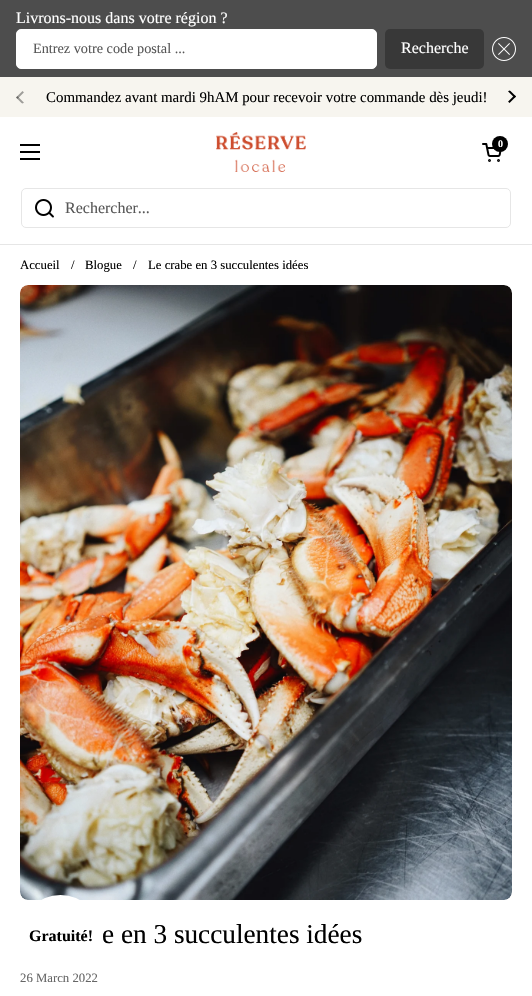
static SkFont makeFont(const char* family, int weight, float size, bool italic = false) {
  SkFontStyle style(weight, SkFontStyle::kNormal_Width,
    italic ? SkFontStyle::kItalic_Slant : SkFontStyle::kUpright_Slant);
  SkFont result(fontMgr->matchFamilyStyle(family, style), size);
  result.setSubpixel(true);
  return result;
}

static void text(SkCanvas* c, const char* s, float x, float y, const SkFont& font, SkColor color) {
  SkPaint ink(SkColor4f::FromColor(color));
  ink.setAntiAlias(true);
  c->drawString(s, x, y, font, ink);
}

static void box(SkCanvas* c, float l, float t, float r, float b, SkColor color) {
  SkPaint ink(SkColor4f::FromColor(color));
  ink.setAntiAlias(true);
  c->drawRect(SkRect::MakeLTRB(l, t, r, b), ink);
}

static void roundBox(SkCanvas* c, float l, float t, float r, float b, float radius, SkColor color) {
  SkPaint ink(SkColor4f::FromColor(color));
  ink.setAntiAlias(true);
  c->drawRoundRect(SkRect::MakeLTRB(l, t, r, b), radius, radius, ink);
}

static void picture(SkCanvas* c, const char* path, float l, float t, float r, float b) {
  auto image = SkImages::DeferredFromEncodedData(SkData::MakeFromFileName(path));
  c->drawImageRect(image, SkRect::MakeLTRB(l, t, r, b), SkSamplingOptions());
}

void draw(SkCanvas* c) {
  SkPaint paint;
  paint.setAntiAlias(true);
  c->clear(0xffffffff);
  box(c, 0, 0, 532, 77, 0xff4d4d4d);
  SkFont face1 = makeFont("Liberation Serif", 400, 16);
  text(c, "Livrons-nous dans votre région ?", 16, 23, face1, 0xffffffff);
  paint.setColor(0xffffffff);
  c->drawRoundRect(SkRect::MakeLTRB(16.5f, 29.5f, 376.5f, 68.5f), 4.5f, 4.5f, paint);
  paint.setStyle(SkPaint::kStroke_Style);
  paint.setStrokeWidth(1);
  c->drawRoundRect(SkRect::MakeLTRB(16.5f, 29.5f, 376.5f, 68.5f), 4.5f, 4.5f, paint);
  SkFont face2 = makeFont("Liberation Serif", 400, 14.25f);
  text(c, "Entrez votre code postal ...", 33, 53, face2, 0xff575757);
  roundBox(c, 385, 29, 484, 69, 5, 0xff383838);
  text(c, "Recherche", 401, 53, face1, 0xffffffff);
  picture(c, "img_01.png", 492, 37, 516, 61);
  box(c, 0, 77, 532, 117, 0xfff7f5ef);
  picture(c, "img_02.png", 16, 91, 24, 104);
  SkFont face3 = makeFont("Liberation Serif", 400, 14.9f);
  text(c, "Commandez avant mardi 9hAM pour recevoir votre commande dès jeudi!", 46, 102, face3, 0xff000000);
  picture(c, "img_03.png", 508, 90, 516, 103);
  box(c, 20, 144, 40, 146, 0xff000000);
  box(c, 20, 151, 40, 153, 0xff000000);
  box(c, 20, 158, 40, 160, 0xff000000);
  picture(c, "img_04.png", 216, 132, 306, 172);
  picture(c, "img_05.png", 482, 143, 502, 162);
  paint.setStyle(SkPaint::kFill_Style);
  paint.setColor(0xff000000);
  c->drawCircle(500, 144, 8, paint);
  SkFont face4 = makeFont("Liberation Serif", 700, 10);
  text(c, "0", 498, 147, face4, 0xffffffff);
  box(c, 0, 244, 532, 245, 0xffe6e6e6);
  paint.setStyle(SkPaint::kStroke_Style);
  paint.setColor(0xffe6e6e6);
  c->drawRoundRect(SkRect::MakeLTRB(21.5f, 188.5f, 510.5f, 227.5f), 4.5f, 4.5f, paint);
  picture(c, "img_06.png", 35, 199, 54, 218);
  text(c, "Rechercher...", 65, 213, face1, 0xff575757);
  SkFont face5 = makeFont("Liberation Serif", 400, 12.75f);
  text(c, "Accueil", 20, 269, face5, 0xff000000);
  text(c, "/", 71, 269, face5, 0xff000000);
  text(c, "Blogue", 85, 269, face5, 0xff000000);
  text(c, "/", 133, 269, face5, 0xff000000);
  text(c, "Le crabe en 3 succulentes idées", 148, 269, face5, 0xff000000);
  picture(c, "img_07.png", 20, 285, 512, 900);
  SkFont face6 = makeFont("Liberation Serif", 400, 27.25f);
  text(c, "e en 3 succulentes idées", 102, 943, face6, 0xff000000);
  text(c, "26 March 2022", 20, 982, face5, 0xff666666);
  paint.setStyle(SkPaint::kFill_Style);
  paint.setColor(0xffffffff);
  c->drawCircle(60.5f, 935.5f, 40.5f, paint);
  SkFont face7 = makeFont("Liberation Serif", 700, 16);
  text(c, "Gratuité!", 29, 941, face7, 0xff000000);
}
